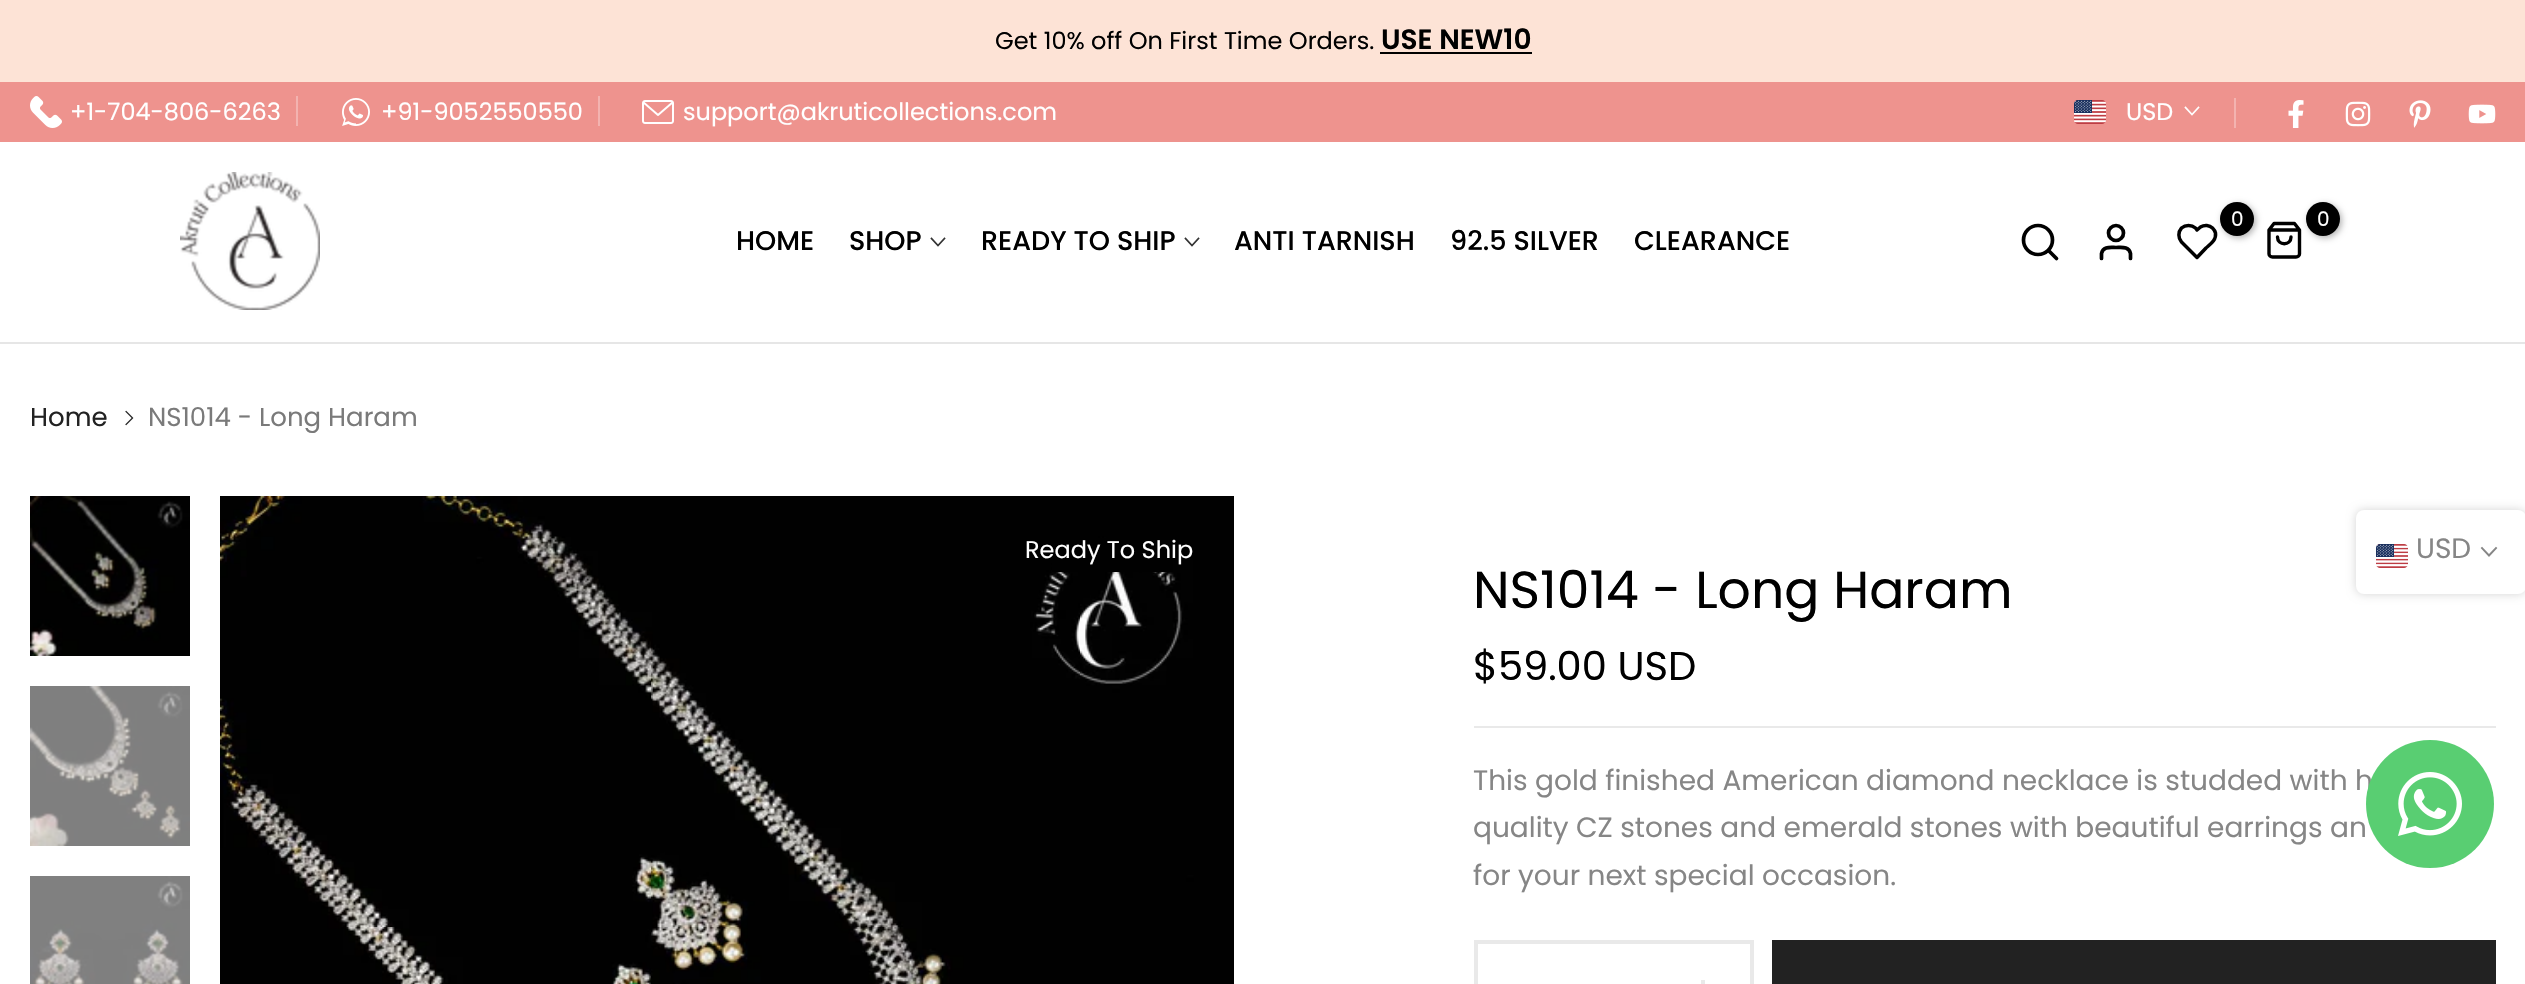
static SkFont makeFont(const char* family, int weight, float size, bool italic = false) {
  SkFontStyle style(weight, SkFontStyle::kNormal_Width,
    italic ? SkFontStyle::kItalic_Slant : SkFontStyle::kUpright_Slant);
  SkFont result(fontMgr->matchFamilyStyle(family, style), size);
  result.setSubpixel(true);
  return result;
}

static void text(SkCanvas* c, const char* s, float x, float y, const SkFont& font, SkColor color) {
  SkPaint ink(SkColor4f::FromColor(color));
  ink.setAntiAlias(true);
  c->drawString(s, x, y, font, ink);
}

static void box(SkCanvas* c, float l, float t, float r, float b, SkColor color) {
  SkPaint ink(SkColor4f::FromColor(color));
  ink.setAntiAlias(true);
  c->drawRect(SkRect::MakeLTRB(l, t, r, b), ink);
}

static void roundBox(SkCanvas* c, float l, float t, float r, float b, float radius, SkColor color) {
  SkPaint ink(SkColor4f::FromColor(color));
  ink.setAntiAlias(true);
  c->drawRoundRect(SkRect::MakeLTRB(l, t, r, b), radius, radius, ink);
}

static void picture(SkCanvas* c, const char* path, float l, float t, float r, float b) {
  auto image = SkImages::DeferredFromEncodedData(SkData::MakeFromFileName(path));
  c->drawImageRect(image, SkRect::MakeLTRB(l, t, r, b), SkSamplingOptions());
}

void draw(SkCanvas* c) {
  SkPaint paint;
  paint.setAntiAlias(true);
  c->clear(0xffffffff);
  box(c, 0, 0, 2525, 82, 0xfffde3d6);
  SkFont face1 = makeFont("Poppins", 400, 24);
  text(c, "Get 10% off On First Time Orders.", 995, 49, face1, 0xff000000);
  SkFont face2 = makeFont("Poppins", 600, 28);
  text(c, "USE NEW10", 1381, 49, face2, 0xff000000);
  box(c, 1380, 52, 1532, 54, 0xff000000);
  box(c, 0, 82, 2525, 142, 0xffee938e);
  picture(c, "img_01.png", 30, 96, 62, 128);
  text(c, "+1-704-806-6263", 70, 120, face1, 0xffffffff);
  box(c, 296, 96, 298, 126, 0xfff3b3b0);
  picture(c, "img_02.png", 342, 98, 370, 126);
  text(c, "+91-9052550550", 381, 120, face1, 0xffffffff);
  box(c, 598, 96, 600, 126, 0xfff3b3b0);
  picture(c, "img_03.png", 642, 100, 674, 124);
  text(c, "support@akruticollections.com", 683, 120, face1, 0xffffffff);
  picture(c, "img_04.png", 2074, 100, 2106, 124);
  text(c, "USD", 2126, 120, face1, 0xffffffff);
  paint.setStyle(SkPaint::kStroke_Style);
  paint.setStrokeWidth(1.7f);
  paint.setStrokeCap(SkPaint::kSquare_Cap);
  paint.setColor(0xffffffff);
  c->drawPath(SkPathBuilder().moveTo(2198.5f, 107.5f).lineTo(2192, 114.5f).lineTo(2185.5f, 107.5f).detach(), paint);
  box(c, 2234, 98, 2236, 128, 0xfff3b3b0);
  picture(c, "img_05.png", 2288, 100, 2304, 128);
  picture(c, "img_06.png", 2345, 101, 2371, 127);
  picture(c, "img_07.png", 2409, 100, 2431, 128);
  picture(c, "img_08.png", 2468, 104, 2496, 124);
  picture(c, "img_09.png", 180, 172, 320, 310);
  paint.setStrokeWidth(3.5f);
  paint.setStrokeCap(SkPaint::kRound_Cap);
  paint.setStrokeJoin(SkPaint::kRound_Join);
  paint.setColor(0xff000000);
  c->drawPath(SkPathBuilder().moveTo(2212.5f, 228).cubicTo(2209.5f, 225, 2204.5f, 224.5f, 2200.5f, 227).lineTo(2197, 230).lineTo(2195.5f, 228).cubicTo(2191.5f, 224.5f, 2185.5f, 224.5f, 2181.5f, 228).cubicTo(2178, 232, 2178, 238, 2181.5f, 242).lineTo(2197, 257.5f).lineTo(2206, 248).cubicTo(2210.5f, 244, 2216.5f, 240, 2215.5f, 233).cubicTo(2215, 231, 2214, 229.5f, 2212.5f, 228).close().detach(), paint);
  paint.setStyle(SkPaint::kFill_Style);
  paint.setColor(0x4d000000);
  paint.setMaskFilter(SkMaskFilter::MakeBlur(kNormal_SkBlurStyle, 3));
  c->drawRoundRect(SkRect::MakeLTRB(2222, 204, 2256, 238), 17, 17, paint);
  paint.setMaskFilter(nullptr);
  paint.setColor(0xff000000);
  c->drawCircle(2237, 219, 17, paint);
  SkFont face3 = makeFont("Poppins", 400, 20);
  text(c, "0", 2231, 226, face3, 0xffffffff);
  paint.setStyle(SkPaint::kStroke_Style);
  paint.setStrokeWidth(3.4f);
  c->drawPath(SkPathBuilder().moveTo(2274, 223.5f).lineTo(2269, 230).lineTo(2269, 254).cubicTo(2269, 255.5f, 2270.5f, 257, 2272.5f, 257).lineTo(2296, 257).cubicTo(2298, 257, 2299.5f, 255.5f, 2299.5f, 254).lineTo(2299.5f, 230).lineTo(2294.5f, 223.5f).close().moveTo(2269, 230).lineTo(2299.5f, 230).moveTo(2291, 237).cubicTo(2291, 246, 2277.5f, 246, 2277.5f, 237).detach(), paint);
  paint.setStyle(SkPaint::kFill_Style);
  paint.setColor(0x4d000000);
  paint.setMaskFilter(SkMaskFilter::MakeBlur(kNormal_SkBlurStyle, 3));
  c->drawRoundRect(SkRect::MakeLTRB(2308, 204, 2342, 238), 17, 17, paint);
  paint.setMaskFilter(nullptr);
  paint.setColor(0xff000000);
  c->drawCircle(2323, 219, 17, paint);
  text(c, "0", 2317, 226, face3, 0xffffffff);
  paint.setStyle(SkPaint::kStroke_Style);
  paint.setStrokeWidth(3.7f);
  paint.setStrokeCap(SkPaint::kButt_Cap);
  paint.setStrokeJoin(SkPaint::kMiter_Join);
  c->drawCircle(2038, 240, 14.5f, paint);
  paint.setStrokeCap(SkPaint::kRound_Cap);
  paint.setStrokeJoin(SkPaint::kRound_Join);
  c->drawPath(SkPathBuilder().moveTo(2056.5f, 258.5f).lineTo(2048.5f, 250.5f).detach(), paint);
  paint.setStrokeCap(SkPaint::kButt_Cap);
  paint.setStrokeJoin(SkPaint::kMiter_Join);
  c->drawCircle(2116, 233, 7.5f, paint);
  paint.setStrokeCap(SkPaint::kRound_Cap);
  paint.setStrokeJoin(SkPaint::kRound_Join);
  c->drawPath(SkPathBuilder().moveTo(2130.5f, 258.5f).lineTo(2130.5f, 253.5f).cubicTo(2129, 246, 2121.5f, 247.5f, 2116, 247.5f).cubicTo(2110.5f, 247.5f, 2103, 246, 2101.5f, 253.5f).lineTo(2101.5f, 258.5f).detach(), paint);
  SkFont face4 = makeFont("Poppins", 500, 27);
  text(c, "HOME", 736, 250, face4, 0xff000000);
  text(c, "SHOP", 849, 250, face4, 0xff000000);
  paint.setStrokeWidth(1.7f);
  paint.setStrokeCap(SkPaint::kSquare_Cap);
  paint.setStrokeJoin(SkPaint::kMiter_Join);
  paint.setColor(0xff333333);
  c->drawPath(SkPathBuilder().moveTo(944.5f, 238.5f).lineTo(938, 245.5f).lineTo(931.5f, 238.5f).detach(), paint);
  text(c, "READY TO SHIP", 981, 250, face4, 0xff000000);
  c->drawPath(SkPathBuilder().moveTo(1198.5f, 238.5f).lineTo(1192, 245.5f).lineTo(1185.5f, 238.5f).detach(), paint);
  text(c, "ANTI TARNISH", 1234, 250, face4, 0xff000000);
  text(c, "92.5 SILVER", 1450, 250, face4, 0xff000000);
  text(c, "CLEARANCE", 1634, 250, face4, 0xff000000);
  box(c, 0, 342, 2525, 344, 0xffe6e6e6);
  SkFont face5 = makeFont("Poppins", 400, 26);
  text(c, "Home", 30, 426, face5, 0xff222222);
  picture(c, "img_10.png", 125, 410, 134, 426);
  text(c, "NS1014 - Long Haram", 148, 426, face5, 0xff7a7a7a);
  picture(c, "img_11.png", 30, 496, 190, 656);
  picture(c, "img_12.png", 30, 686, 190, 846);
  picture(c, "img_13.png", 30, 876, 190, 984);
  picture(c, "img_14.png", 220, 496, 1234, 984);
  paint.setStyle(SkPaint::kFill_Style);
  paint.setColor(0x1a000000);
  paint.setMaskFilter(SkMaskFilter::MakeBlur(kNormal_SkBlurStyle, 1));
  c->drawRect(SkRect::MakeLTRB(1016, 528, 1206, 574), paint);
  paint.setMaskFilter(nullptr);
  box(c, 1052, 538, 1173, 572, 0xff010101);
  text(c, "Ready To Ship", 1025, 558, face1, 0xffffffff);
  SkFont face6 = makeFont("Poppins", 400, 52);
  text(c, "NS1014 - Long Haram", 1473, 608, face6, 0xff000000);
  SkFont face7 = makeFont("Poppins", 400, 40);
  text(c, "$59.00 USD", 1473, 680, face7, 0xff000000);
  box(c, 1474, 726, 2496, 728, 0xffe9e9e9);
  SkFont face8 = makeFont("Poppins", 400, 28);
  text(c, "This gold finished American diamond necklace is studded with h", 1473, 790, face8, 0xff868686);
  text(c, "quality CZ stones and emerald stones with beautiful earrings an", 1473, 837, face8, 0xff868686);
  text(c, "for your next special occasion.", 1473, 885, face8, 0xff868686);
  paint.setStyle(SkPaint::kStroke_Style);
  paint.setStrokeWidth(4);
  paint.setStrokeCap(SkPaint::kButt_Cap);
  paint.setColor(0xffe9e9e9);
  c->drawRect(SkRect::MakeLTRB(1476, 942, 1752, 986), paint);
  box(c, 1701, 980, 1705, 984, 0xffe9e9e9);
  box(c, 1772, 940, 2496, 984, 0xff222222);
  paint.setStyle(SkPaint::kFill_Style);
  paint.setColor(0x2b000000);
  paint.setMaskFilter(SkMaskFilter::MakeBlur(kNormal_SkBlurStyle, 5));
  c->drawRoundRect(SkRect::MakeLTRB(2356, 510, 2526, 594), 8, 8, paint);
  paint.setMaskFilter(nullptr);
  roundBox(c, 2356, 510, 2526, 594, 8, 0xffffffff);
  picture(c, "img_15.png", 2376, 544, 2408, 568);
  text(c, "USD", 2416, 558, face8, 0xff868686);
  paint.setStyle(SkPaint::kStroke_Style);
  paint.setStrokeWidth(1.9f);
  paint.setStrokeCap(SkPaint::kSquare_Cap);
  paint.setColor(0xff868686);
  c->drawPath(SkPathBuilder().moveTo(2496, 548).lineTo(2489, 555.5f).lineTo(2482, 548).detach(), paint);
  paint.setStyle(SkPaint::kFill_Style);
  paint.setColor(0xff59ce72);
  c->drawCircle(2430, 804, 64, paint);
  picture(c, "img_16.png", 2398, 772, 2462, 836);
}
